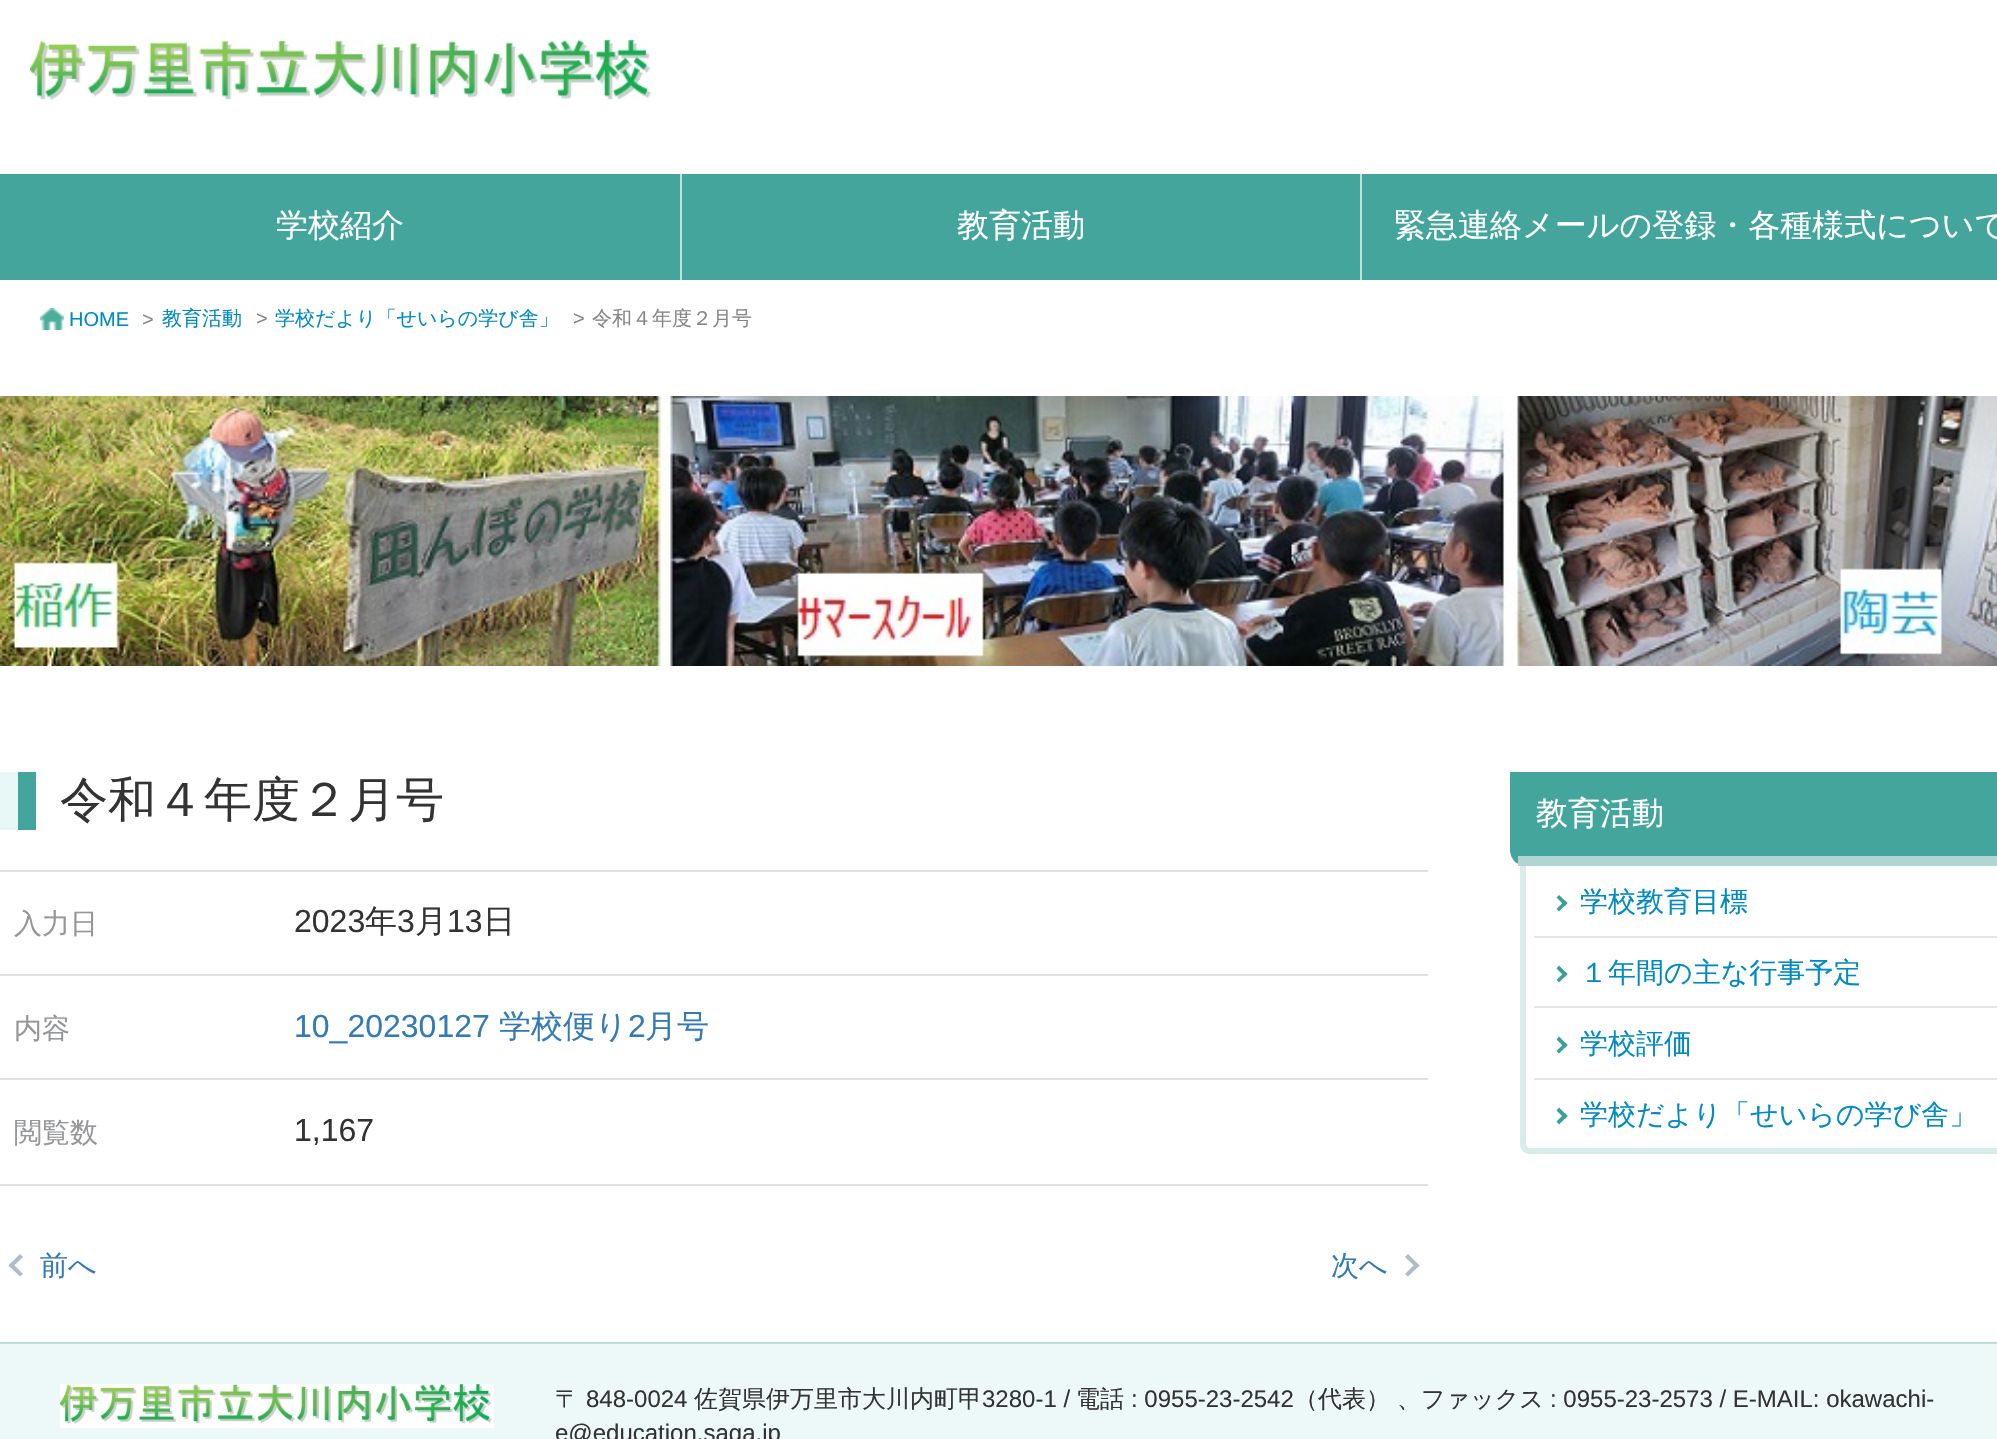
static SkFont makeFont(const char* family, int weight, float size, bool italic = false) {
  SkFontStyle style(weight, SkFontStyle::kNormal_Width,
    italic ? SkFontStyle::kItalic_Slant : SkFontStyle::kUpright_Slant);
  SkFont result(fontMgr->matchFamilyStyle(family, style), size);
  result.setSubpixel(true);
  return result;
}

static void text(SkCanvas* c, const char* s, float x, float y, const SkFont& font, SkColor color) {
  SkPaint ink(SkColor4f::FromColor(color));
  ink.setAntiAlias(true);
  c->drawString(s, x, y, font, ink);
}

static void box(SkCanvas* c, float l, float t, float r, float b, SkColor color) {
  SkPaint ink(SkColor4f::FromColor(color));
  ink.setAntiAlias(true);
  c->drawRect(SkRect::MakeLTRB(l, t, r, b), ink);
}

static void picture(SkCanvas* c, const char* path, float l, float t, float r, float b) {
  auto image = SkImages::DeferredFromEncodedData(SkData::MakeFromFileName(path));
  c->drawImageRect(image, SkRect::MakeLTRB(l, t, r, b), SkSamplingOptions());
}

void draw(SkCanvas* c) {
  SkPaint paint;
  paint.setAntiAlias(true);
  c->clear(0xffffffff);
  picture(c, "img_01.png", 30, 40, 651, 100);
  box(c, 0, 174, 680, 280, 0xff44a59c);
  SkFont face1 = makeFont("WenQuanYi Zen Hei", 500, 32);
  text(c, "学校紹介", 276, 236, face1, 0xffffffff);
  box(c, 680, 174, 682, 280, 0xffc2e1dc);
  box(c, 682, 174, 1360, 280, 0xff44a59c);
  text(c, "教育活動", 957, 236, face1, 0xffffffff);
  box(c, 1360, 174, 1362, 280, 0xffc2e1dc);
  box(c, 1362, 174, 1997, 280, 0xff44a59c);
  text(c, "緊急連絡メールの登録・各種様式について", 1394, 236, face1, 0xffffffff);
  picture(c, "img_02.png", 40, 308, 64, 330);
  SkFont face2 = makeFont("Liberation Sans", 400, 20);
  text(c, "HOME", 69, 326, face2, 0xff018bc4);
  text(c, ">", 142, 326, face2, 0xff868686);
  SkFont face3 = makeFont("WenQuanYi Zen Hei", 500, 20);
  text(c, "教育活動", 162, 325, face3, 0xff018bc4);
  text(c, ">", 256, 325, face2, 0xff868686);
  text(c, "学校だより「せいらの学び舎」", 275, 325, face3, 0xff018bc4);
  text(c, ">", 573, 325, face2, 0xff868686);
  text(c, "令和４年度２月号", 592, 325, face3, 0xff868686);
  picture(c, "img_03.png", 0, 396, 1997, 666);
  box(c, 0, 772, 18, 830, 0xffe8f8f7);
  box(c, 18, 772, 36, 830, 0xff44a59c);
  SkFont face4 = makeFont("WenQuanYi Zen Hei", 500, 48);
  text(c, "令和４年度２月号", 60, 816, face4, 0xff333333);
  box(c, 0, 870, 1428, 872, 0xffdee0e1);
  box(c, 0, 974, 1428, 976, 0xffdee0e1);
  SkFont face5 = makeFont("WenQuanYi Zen Hei", 500, 28);
  text(c, "入力日", 14, 933, face5, 0xff959698);
  SkFont face6 = makeFont("Liberation Sans", 400, 32);
  text(c, "2023", 294, 932, face6, 0xff333333);
  text(c, "年", 365, 932, face1, 0xff333333);
  text(c, "3", 397, 932, face6, 0xff333333);
  text(c, "月", 415, 932, face1, 0xff333333);
  text(c, "13", 447, 932, face6, 0xff333333);
  text(c, "日", 483, 932, face1, 0xff333333);
  box(c, 0, 1078, 1428, 1080, 0xffdee0e1);
  text(c, "内容", 14, 1038, face5, 0xff959698);
  text(c, "10_20230127", 294, 1037, face6, 0xff337ab7);
  text(c, "学校便り", 499, 1037, face1, 0xff337ab7);
  text(c, "2", 628, 1037, face6, 0xff337ab7);
  text(c, "月号", 645, 1037, face1, 0xff337ab7);
  box(c, 0, 1184, 1428, 1186, 0xffdee0e1);
  text(c, "閲覧数", 14, 1142, face5, 0xff959698);
  text(c, "1,167", 294, 1141, face6, 0xff333333);
  paint.setColor(0xffafbdca);
  c->drawPath(SkPathBuilder().moveTo(8.5f, 1265.5f).lineTo(20, 1254).lineTo(23, 1257).lineTo(11.5f, 1268).close().detach(), paint);
  c->drawPath(SkPathBuilder().moveTo(8.5f, 1265.5f).lineTo(11.5f, 1262.5f).lineTo(23, 1274).lineTo(20, 1276.5f).close().detach(), paint);
  text(c, "前へ", 40, 1275, face5, 0xff337ab7);
  text(c, "次へ", 1331, 1275, face5, 0xff337ab7);
  c->drawPath(SkPathBuilder().moveTo(1408, 1254).lineTo(1419.5f, 1265.5f).lineTo(1416.5f, 1268).lineTo(1405, 1257).close().detach(), paint);
  c->drawPath(SkPathBuilder().moveTo(1416.5f, 1262.5f).lineTo(1419.5f, 1265.5f).lineTo(1408, 1276.5f).lineTo(1405, 1274).close().detach(), paint);
  paint.setColor(0xff44a59c);
  c->drawPath(SkPathBuilder().moveTo(1510, 772).lineTo(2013, 772).lineTo(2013, 850).cubicTo(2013, 859, 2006, 866, 1997, 866).lineTo(1526, 866).cubicTo(1517, 866, 1510, 859, 1510, 850).close().detach(), paint);
  box(c, 1518, 856, 1997, 866, 0xffb1d5d3);
  text(c, "教育活動", 1536, 824, face1, 0xffffffff);
  paint.setColor(0xffd8ecea);
  c->drawPath(SkPathBuilder(SkPathFillType::kEvenOdd).moveTo(1520, 866).lineTo(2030, 866).lineTo(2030, 1144).cubicTo(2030, 1150, 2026, 1154, 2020, 1154).lineTo(1530, 1154).cubicTo(1524, 1154, 1520, 1150, 1520, 1144).close().moveTo(1526, 866).lineTo(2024, 866).lineTo(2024, 1144).cubicTo(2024, 1146, 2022, 1148, 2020, 1148).lineTo(1530, 1148).cubicTo(1528, 1148, 1526, 1146, 1526, 1144).close().detach(), paint);
  box(c, 1534, 936, 1997, 938, 0xffe6e6e6);
  paint.setColor(0xff3a9f97);
  c->drawPath(SkPathBuilder().moveTo(1559, 895).lineTo(1567.5f, 903).lineTo(1565, 906).lineTo(1556.5f, 897.5f).close().detach(), paint);
  c->drawPath(SkPathBuilder().moveTo(1565, 900.5f).lineTo(1567.5f, 903).lineTo(1559, 911.5f).lineTo(1556.5f, 909).close().detach(), paint);
  text(c, "学校教育目標", 1580, 911, face5, 0xff018bc4);
  box(c, 1534, 1006, 1997, 1008, 0xffe6e6e6);
  c->drawPath(SkPathBuilder().moveTo(1559, 965.5f).lineTo(1567.5f, 974).lineTo(1565, 977).lineTo(1556.5f, 968.5f).close().detach(), paint);
  c->drawPath(SkPathBuilder().moveTo(1565, 971.5f).lineTo(1567.5f, 974).lineTo(1559, 982.5f).lineTo(1556.5f, 980).close().detach(), paint);
  text(c, "１年間の主な行事予定", 1580, 982, face5, 0xff018bc4);
  box(c, 1534, 1078, 1997, 1080, 0xffe6e6e6);
  c->drawPath(SkPathBuilder().moveTo(1559, 1036.5f).lineTo(1567.5f, 1045).lineTo(1565, 1048).lineTo(1556.5f, 1039.5f).close().detach(), paint);
  c->drawPath(SkPathBuilder().moveTo(1565, 1042.5f).lineTo(1567.5f, 1045).lineTo(1559, 1053.5f).lineTo(1556.5f, 1051).close().detach(), paint);
  text(c, "学校評価", 1580, 1053, face5, 0xff018bc4);
  c->drawPath(SkPathBuilder().moveTo(1559, 1107.5f).lineTo(1567.5f, 1116).lineTo(1565, 1119).lineTo(1556.5f, 1110.5f).close().detach(), paint);
  c->drawPath(SkPathBuilder().moveTo(1565, 1113).lineTo(1567.5f, 1116).lineTo(1559, 1124.5f).lineTo(1556.5f, 1121.5f).close().detach(), paint);
  text(c, "学校だより「せいらの学び舎」", 1580, 1124, face5, 0xff018bc4);
  box(c, 0, 1344, 1997, 1439, 0xffedf9f9);
  box(c, 0, 1342, 1997, 1344, 0xffbfdfdc);
  picture(c, "img_04.png", 60, 1384, 494, 1428);
  SkFont face7 = makeFont("WenQuanYi Zen Hei", 500, 24);
  text(c, "〒", 555, 1407, face7, 0xff333333);
  SkFont face8 = makeFont("Liberation Sans", 400, 24);
  text(c, "848-0024", 586, 1407, face8, 0xff333333);
  text(c, "佐賀県伊万里市大川内町甲", 694, 1407, face7, 0xff333333);
  text(c, "3280-1 /", 982, 1407, face8, 0xff333333);
  text(c, "電話", 1076, 1407, face7, 0xff333333);
  text(c, ": 0955-23-2542", 1131, 1407, face8, 0xff333333);
  text(c, "（代表）", 1294, 1407, face7, 0xff333333);
  text(c, "、ファックス", 1397, 1407, face7, 0xff333333);
  text(c, ": 0955-23-2573 / E-MAIL: okawachi-", 1550, 1407, face8, 0xff333333);
  text(c, "e@education.saga.jp", 555, 1441, face8, 0xff333333);
}
